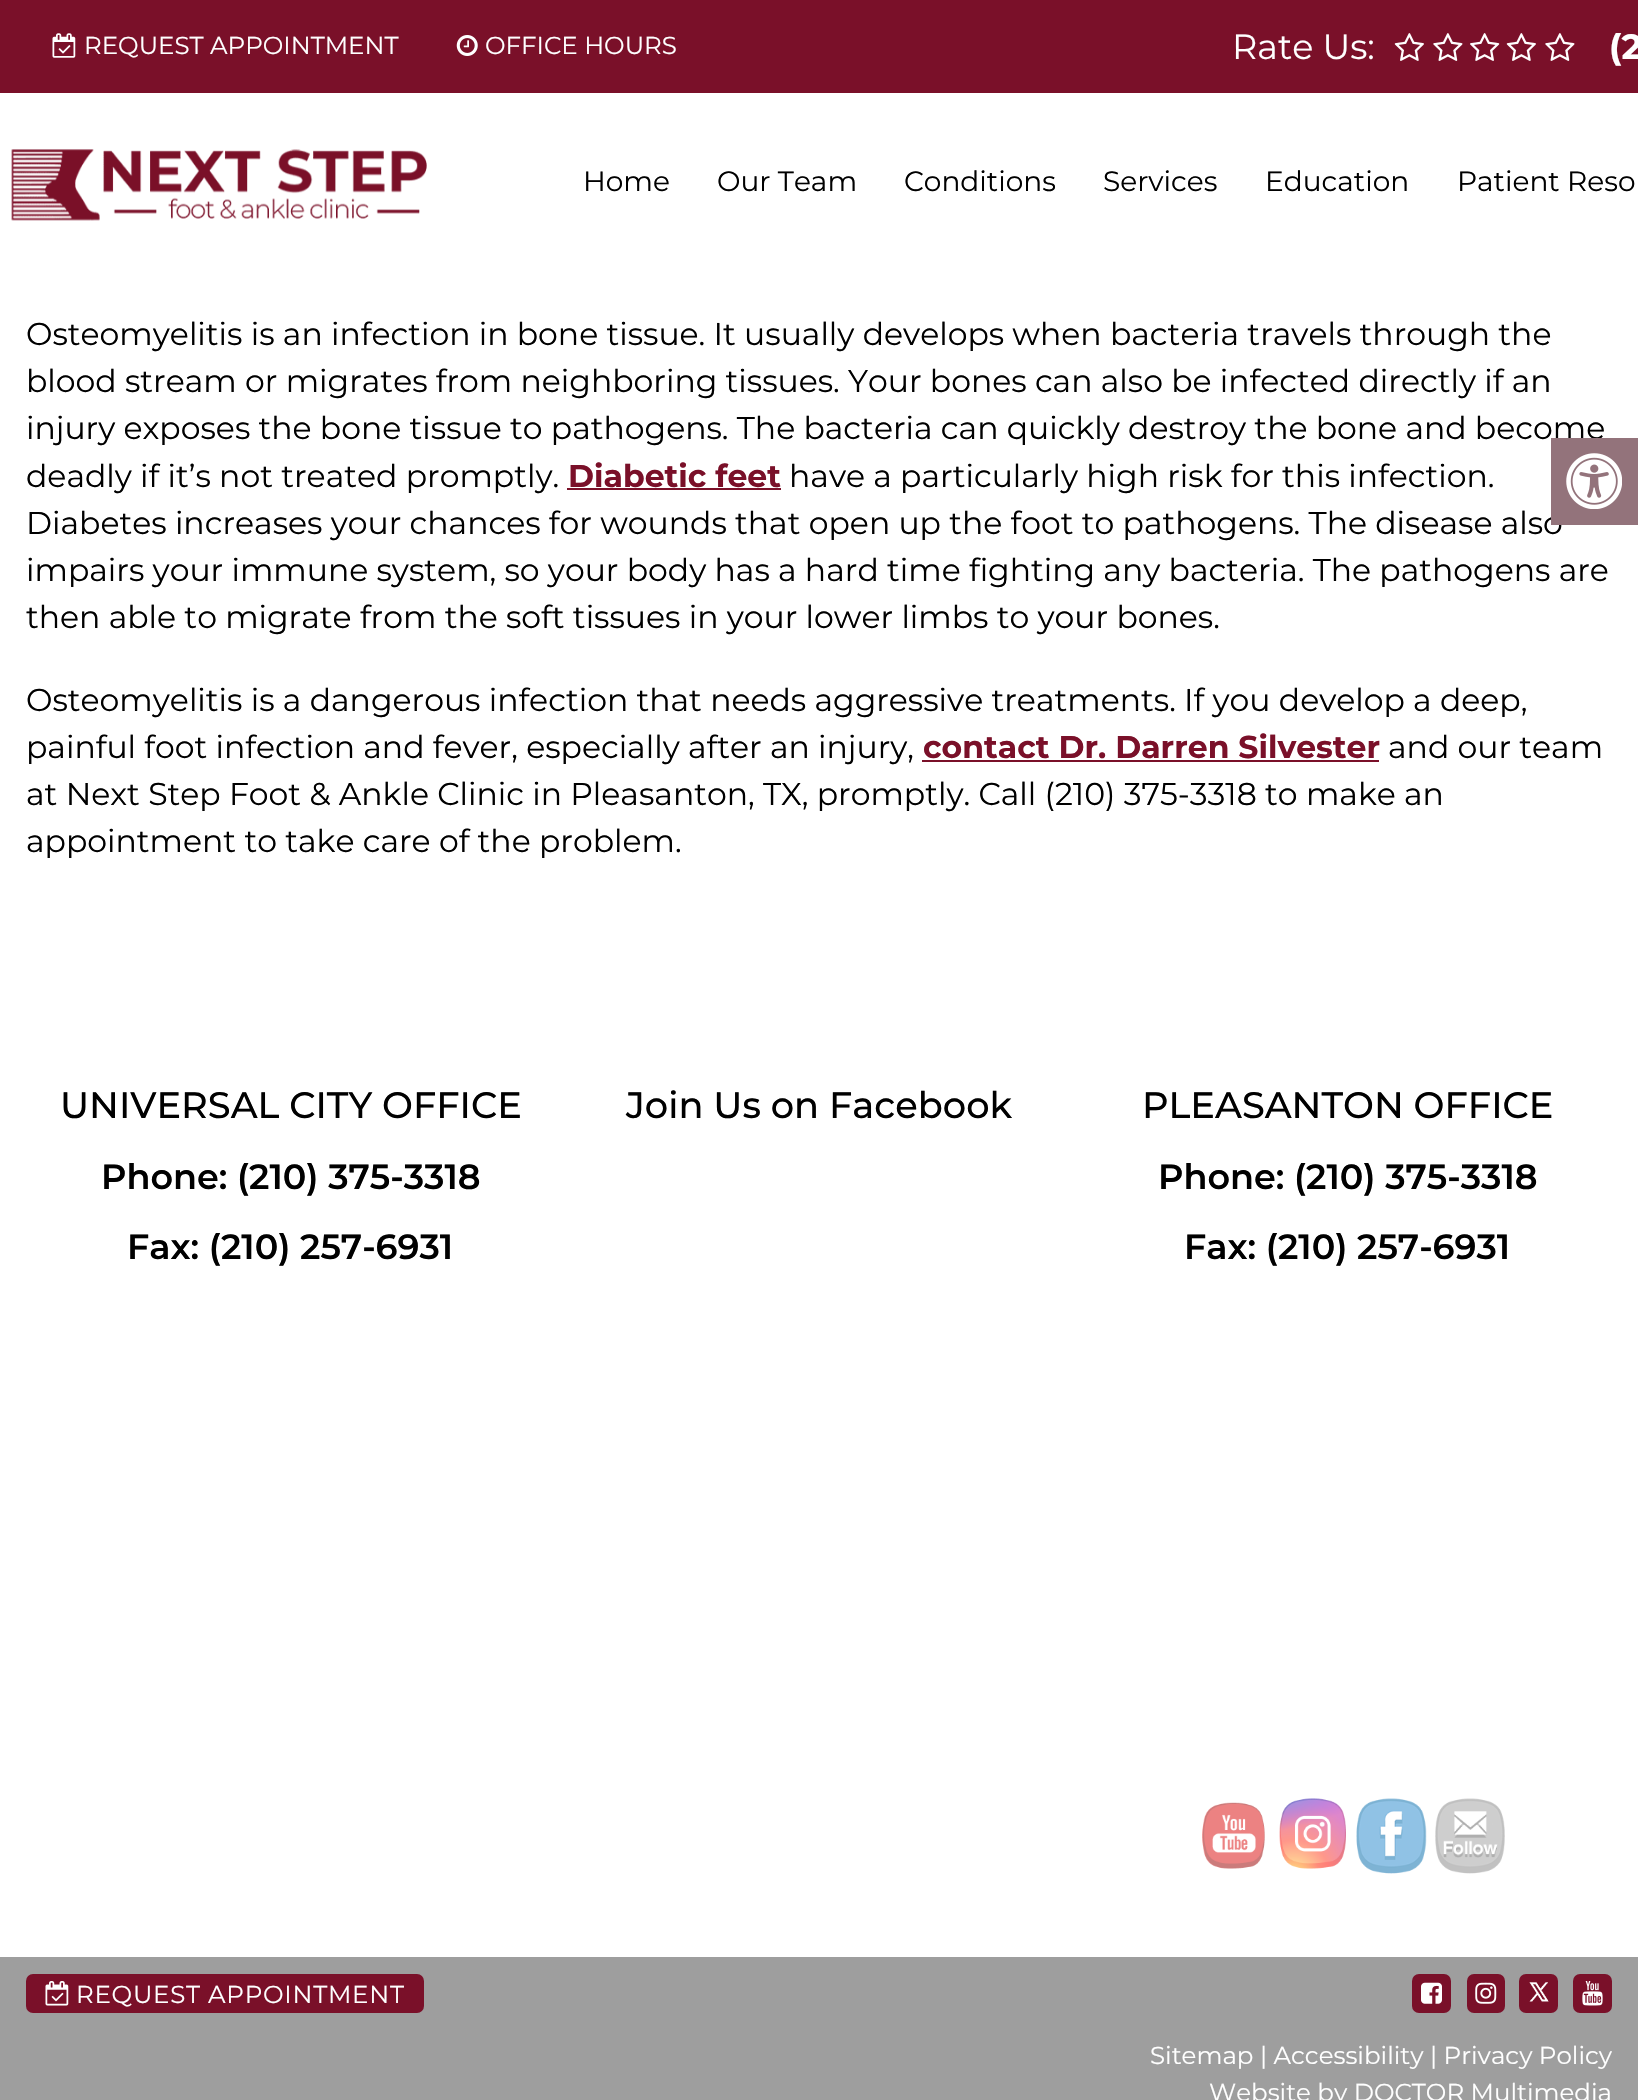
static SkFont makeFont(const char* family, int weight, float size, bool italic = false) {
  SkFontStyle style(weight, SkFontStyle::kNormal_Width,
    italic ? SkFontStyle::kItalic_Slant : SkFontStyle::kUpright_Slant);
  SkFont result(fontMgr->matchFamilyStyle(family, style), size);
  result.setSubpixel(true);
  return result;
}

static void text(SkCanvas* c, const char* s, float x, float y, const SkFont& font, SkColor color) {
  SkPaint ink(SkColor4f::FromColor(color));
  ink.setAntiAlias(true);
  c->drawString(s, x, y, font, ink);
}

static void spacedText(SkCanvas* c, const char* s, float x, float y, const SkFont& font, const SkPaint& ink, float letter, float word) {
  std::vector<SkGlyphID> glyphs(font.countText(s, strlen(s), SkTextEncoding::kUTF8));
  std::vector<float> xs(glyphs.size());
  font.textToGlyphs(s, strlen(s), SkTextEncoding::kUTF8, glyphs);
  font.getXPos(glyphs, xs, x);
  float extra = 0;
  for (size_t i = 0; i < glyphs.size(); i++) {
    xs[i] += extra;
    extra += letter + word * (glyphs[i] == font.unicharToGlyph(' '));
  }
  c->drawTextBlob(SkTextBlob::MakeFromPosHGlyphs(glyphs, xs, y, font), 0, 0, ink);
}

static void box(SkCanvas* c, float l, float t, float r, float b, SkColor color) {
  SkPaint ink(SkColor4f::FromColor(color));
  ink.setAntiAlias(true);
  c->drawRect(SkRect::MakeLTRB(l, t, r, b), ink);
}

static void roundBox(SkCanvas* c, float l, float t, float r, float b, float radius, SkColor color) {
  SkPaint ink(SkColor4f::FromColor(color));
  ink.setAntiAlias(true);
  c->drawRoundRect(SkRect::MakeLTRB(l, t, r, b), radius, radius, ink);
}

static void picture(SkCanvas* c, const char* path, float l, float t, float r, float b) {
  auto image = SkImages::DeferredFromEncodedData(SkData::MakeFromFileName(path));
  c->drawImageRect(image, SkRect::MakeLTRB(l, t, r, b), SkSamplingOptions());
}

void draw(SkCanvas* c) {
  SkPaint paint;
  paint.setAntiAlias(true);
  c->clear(0xffffffff);
  box(c, 0, 0, 1638, 93, 0xff7a1029);
  picture(c, "img_01.png", 52, 33, 76, 58);
  SkFont face1 = makeFont("Montserrat", 400, 24.5f);
  text(c, "REQUEST APPOINTMENT", 84, 54, face1, 0xffffffff);
  picture(c, "img_02.png", 456, 35, 478, 56);
  text(c, "OFFICE HOURS", 485, 54, face1, 0xffffffff);
  SkFont face2 = makeFont("Montserrat", 400, 35);
  text(c, "Rate Us:", 1232, 59, face2, 0xffffffff);
  picture(c, "img_03.png", 1394, 33, 1424, 61);
  picture(c, "img_04.png", 1433, 33, 1463, 61);
  picture(c, "img_05.png", 1470, 33, 1500, 61);
  picture(c, "img_03.png", 1506, 33, 1536, 61);
  picture(c, "img_04.png", 1545, 33, 1575, 61);
  SkFont face3 = makeFont("Montserrat", 700, 35);
  text(c, "(2", 1609, 59, face3, 0xffffffff);
  picture(c, "img_06.png", 11, 149, 427, 221);
  SkFont face4 = makeFont("Montserrat", 400, 28);
  text(c, "Home", 583, 191, face4, 0xff000000);
  text(c, "Our Team", 717, 191, face4, 0xff000000);
  text(c, "Conditions", 904, 191, face4, 0xff000000);
  text(c, "Services", 1103, 191, face4, 0xff000000);
  text(c, "Education", 1265, 191, face4, 0xff000000);
  text(c, "Patient Reso", 1457, 191, face4, 0xff000000);
  SkFont face5 = makeFont("Montserrat", 400, 31.5f);
  text(c, "Osteomyelitis is an infection in bone tissue. It usually develops when bacteria travels through the", 26, 345, face5, 0xff000000);
  text(c, "blood stream or migrates from neighboring tissues. Your bones can also be infected directly if an", 26, 392, face5, 0xff000000);
  text(c, "injury exposes the bone tissue to pathogens. The bacteria can quickly destroy the bone and become", 26, 439, face5, 0xff000000);
  text(c, "deadly if it’s not treated promptly.", 26, 487, face5, 0xff000000);
  SkFont face6 = makeFont("Montserrat", 700, 31.5f);
  text(c, "Diabetic feet", 568, 487, face6, 0xff7a1029);
  box(c, 567, 488, 781, 490, 0xff7a1029);
  text(c, "have a particularly high risk for this infection.", 789, 487, face5, 0xff000000);
  text(c, "Diabetes increases your chances for wounds that open up the foot to pathogens. The disease also", 26, 534, face5, 0xff000000);
  text(c, "impairs your immune system, so your body has a hard time fighting any bacteria. The pathogens are", 26, 581, face5, 0xff000000);
  text(c, "then able to migrate from the soft tissues in your lower limbs to your bones.", 26, 628, face5, 0xff000000);
  text(c, "Osteomyelitis is a dangerous infection that needs aggressive treatments. If you develop a deep,", 26, 711, face5, 0xff000000);
  text(c, "painful foot infection and fever, especially after an injury,", 26, 758, face5, 0xff000000);
  text(c, "contact Dr. Darren Silvester", 923, 758, face6, 0xff7a1029);
  box(c, 922, 760, 1379, 762, 0xff7a1029);
  text(c, "and our team", 1388, 758, face5, 0xff000000);
  text(c, "at Next Step Foot & Ankle Clinic in Pleasanton, TX, promptly. Call (210) 375-3318 to make an", 26, 805, face5, 0xff000000);
  text(c, "appointment to take care of the problem.", 26, 852, face5, 0xff000000);
  SkFont face7 = makeFont("Montserrat", 500, 36.75f);
  text(c, "UNIVERSAL CITY OFFICE", 60, 1118, face7, 0xff000000);
  SkFont face8 = makeFont("Montserrat", 600, 35);
  text(c, "Phone: (210) 375-3318", 101, 1189, face8, 0xff000000);
  text(c, "Fax: (210) 257-6931", 127, 1259, face8, 0xff000000);
  text(c, "Join Us on Facebook", 626, 1118, face7, 0xff000000);
  text(c, "PLEASANTON OFFICE", 1142, 1118, face7, 0xff000000);
  text(c, "Phone: (210) 375-3318", 1158, 1189, face8, 0xff000000);
  text(c, "Fax: (210) 257-6931", 1184, 1259, face8, 0xff000000);
  box(c, 0, 1957, 1638, 2100, 0xff9e9e9e);
  roundBox(c, 26, 1974, 424, 2013, 7, 0xff7a1029);
  picture(c, "img_07.png", 45, 1981, 69, 2006);
  paint.setColor(0xffffffff);
  spacedText(c, "REQUEST APPOINTMENT", 76, 2003, face1, paint, 0.75f, 0);
  roundBox(c, 1412, 1974, 1451, 2013, 7, 0xff7a1029);
  picture(c, "img_08.png", 1421, 1982, 1442, 2004);
  roundBox(c, 1467, 1974, 1505, 2013, 7, 0xff7a1029);
  picture(c, "img_09.png", 1475, 1982, 1497, 2004);
  roundBox(c, 1519, 1974, 1558, 2013, 7, 0xff7a1029);
  picture(c, "img_10.png", 1529, 1982, 1549, 2002);
  roundBox(c, 1573, 1974, 1612, 2013, 7, 0xff7a1029);
  picture(c, "img_11.png", 1582, 1981, 1603, 2006);
  text(c, "Sitemap | Accessibility | Privacy Policy", 1150, 2064, face1, 0xffffffff);
  text(c, "Website by DOCTOR Multimedia", 1209, 2101, face1, 0xffffffff);
  box(c, 1551, 438, 1638, 525, 0xff93737b);
  picture(c, "img_12.png", 1566, 453, 1622, 509);
  picture(c, "img_13.png", 1202, 1802, 1265, 1869);
  picture(c, "img_14.png", 1279, 1798, 1346, 1869);
  picture(c, "img_15.png", 1356, 1798, 1427, 1874);
  picture(c, "img_16.png", 1435, 1798, 1505, 1874);
}
